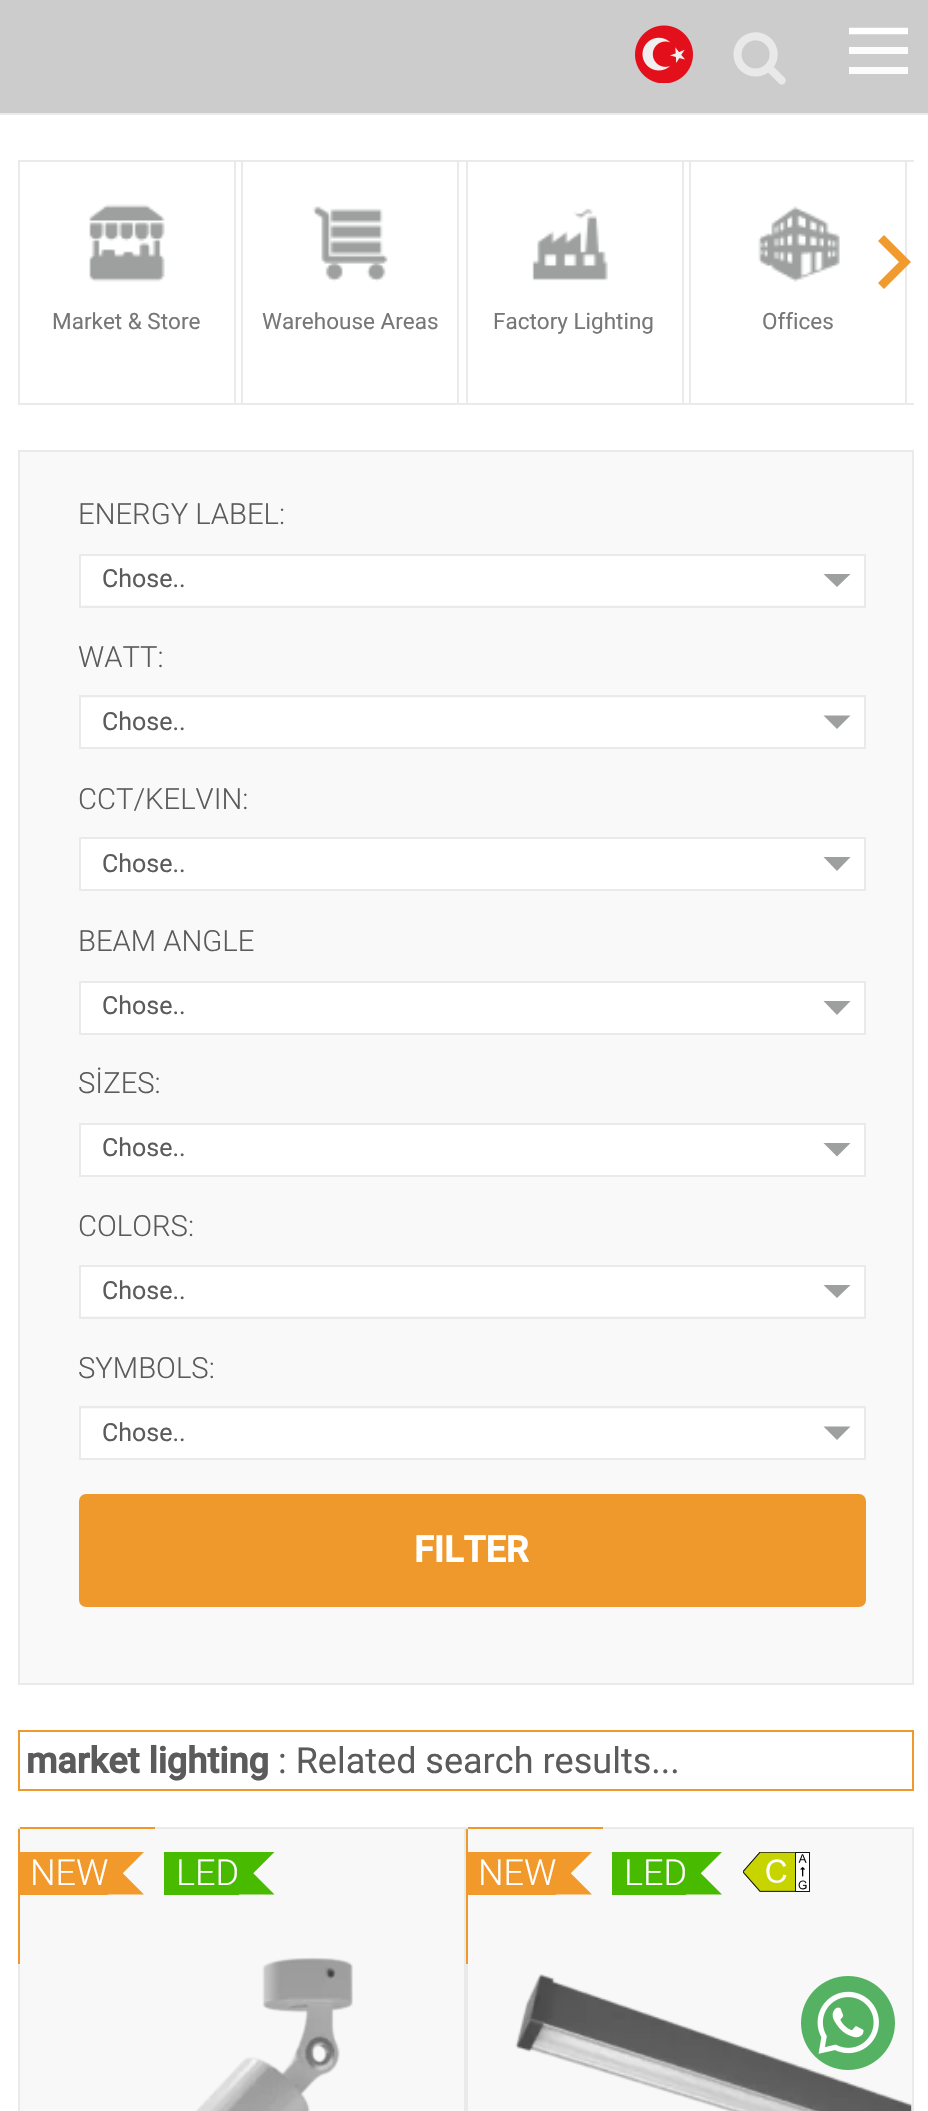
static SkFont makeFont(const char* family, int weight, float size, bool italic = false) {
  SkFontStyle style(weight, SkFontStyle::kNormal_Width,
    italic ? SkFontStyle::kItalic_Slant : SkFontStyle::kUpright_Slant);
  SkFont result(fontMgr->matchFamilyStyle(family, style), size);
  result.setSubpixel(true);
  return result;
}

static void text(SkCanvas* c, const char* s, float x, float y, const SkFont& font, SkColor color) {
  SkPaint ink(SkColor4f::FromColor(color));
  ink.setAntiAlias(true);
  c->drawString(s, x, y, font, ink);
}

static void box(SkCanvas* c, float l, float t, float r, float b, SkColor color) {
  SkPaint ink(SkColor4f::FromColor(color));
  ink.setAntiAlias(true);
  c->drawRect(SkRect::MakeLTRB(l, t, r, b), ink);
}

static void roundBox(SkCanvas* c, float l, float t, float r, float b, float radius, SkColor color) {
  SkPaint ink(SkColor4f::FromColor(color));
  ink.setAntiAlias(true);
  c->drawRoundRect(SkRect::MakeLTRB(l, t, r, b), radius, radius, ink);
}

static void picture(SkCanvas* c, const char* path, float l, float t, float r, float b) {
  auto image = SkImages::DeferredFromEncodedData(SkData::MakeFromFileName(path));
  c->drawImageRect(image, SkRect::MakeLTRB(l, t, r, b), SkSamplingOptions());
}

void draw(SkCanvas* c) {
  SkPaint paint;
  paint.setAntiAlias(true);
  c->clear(0xffffffff);
  box(c, 0, 113, 928, 115, 0xffe9eaea);
  box(c, 0, 0, 928, 113, 0xffcccccc);
  picture(c, "img_01.png", 635, 25, 693, 83);
  picture(c, "img_02.png", 733, 32, 786, 85);
  paint.setStyle(SkPaint::kStroke_Style);
  paint.setStrokeWidth(6.6f);
  paint.setColor(0xffffffff);
  c->drawPath(SkPathBuilder().moveTo(849, 31).lineTo(908, 31).detach(), paint);
  box(c, 849, 47, 908, 54, 0xfffcfcfc);
  box(c, 849, 67, 908, 74, 0xfffcfcfc);
  box(c, 18, 160, 914, 162, 0xffe9eaea);
  box(c, 18, 403, 914, 405, 0xffe9eaea);
  box(c, 905, 162, 907, 403, 0xffe9eaea);
  paint.setStyle(SkPaint::kFill_Style);
  paint.setColor(0xfff19a2d);
  c->drawPath(SkPathBuilder().moveTo(878, 283).lineTo(899, 262).lineTo(878, 241).lineTo(884, 235).lineTo(911, 262).lineTo(884, 289).close().detach(), paint);
  box(c, 234, 162, 236, 403, 0xffe9eaea);
  box(c, 18, 162, 20, 403, 0xffe9eaea);
  picture(c, "img_03.png", 89, 204, 165, 282);
  SkFont face1 = makeFont("Roboto", 400, 22.5f);
  text(c, "Market & Store", 52, 329, face1, 0xff777777);
  box(c, 457, 162, 459, 403, 0xffe9eaea);
  box(c, 241, 162, 243, 403, 0xffe9eaea);
  picture(c, "img_04.png", 312, 206, 388, 282);
  text(c, "Warehouse Areas", 262, 329, face1, 0xff777777);
  box(c, 682, 162, 684, 403, 0xffe9eaea);
  box(c, 466, 162, 468, 403, 0xffe9eaea);
  picture(c, "img_05.png", 532, 208, 608, 281);
  text(c, "Factory Lighting", 493, 329, face1, 0xff777777);
  box(c, 689, 162, 691, 403, 0xffe9eaea);
  picture(c, "img_06.png", 758, 206, 840, 282);
  text(c, "Offices", 762, 329, face1, 0xff777777);
  paint.setColor(0xfff9f9f9);
  c->drawRect(SkRect::MakeLTRB(19, 451, 913, 1684), paint);
  paint.setStyle(SkPaint::kStroke_Style);
  paint.setStrokeWidth(2);
  paint.setColor(0xffe9eaea);
  c->drawRect(SkRect::MakeLTRB(19, 451, 913, 1684), paint);
  SkFont face2 = makeFont("Roboto", 300, 29.25f);
  text(c, "ENERGY LABEL:", 78, 524, face2, 0xff5b5b5b);
  c->drawRect(SkRect::MakeLTRB(80, 555, 865, 607), paint);
  box(c, 81, 556, 864, 605, 0xffffffff);
  SkFont face3 = makeFont("Roboto", 400, 25);
  text(c, "Chose..", 102, 587, face3, 0xff5b5b5b);
  paint.setStyle(SkPaint::kFill_Style);
  paint.setColor(0xff9e9f9f);
  c->drawPath(SkPathBuilder().moveTo(823.5f, 574).lineTo(850.5f, 574).lineTo(837, 587).close().detach(), paint);
  text(c, "WATT:", 78, 667, face2, 0xff5b5b5b);
  paint.setStyle(SkPaint::kStroke_Style);
  paint.setColor(0xffe9eaea);
  c->drawRect(SkRect::MakeLTRB(80, 696, 865, 748), paint);
  box(c, 81, 698, 864, 747, 0xffffffff);
  text(c, "Chose..", 102, 730, face3, 0xff5b5b5b);
  paint.setStyle(SkPaint::kFill_Style);
  paint.setColor(0xff9e9f9f);
  c->drawPath(SkPathBuilder().moveTo(823.5f, 715.5f).lineTo(850.5f, 715.5f).lineTo(837, 729).close().detach(), paint);
  text(c, "CCT/KELVIN:", 78, 809, face2, 0xff5b5b5b);
  paint.setStyle(SkPaint::kStroke_Style);
  paint.setColor(0xffe9eaea);
  c->drawRect(SkRect::MakeLTRB(80, 838, 865, 890), paint);
  box(c, 81, 839, 864, 889, 0xffffffff);
  text(c, "Chose..", 102, 872, face3, 0xff5b5b5b);
  paint.setStyle(SkPaint::kFill_Style);
  paint.setColor(0xff9e9f9f);
  c->drawPath(SkPathBuilder().moveTo(823.5f, 857).lineTo(850.5f, 857).lineTo(837, 871).close().detach(), paint);
  text(c, "BEAM ANGLE", 78, 951, face2, 0xff5b5b5b);
  paint.setStyle(SkPaint::kStroke_Style);
  paint.setColor(0xffe9eaea);
  c->drawRect(SkRect::MakeLTRB(80, 982, 865, 1034), paint);
  box(c, 81, 983, 864, 1033, 0xffffffff);
  text(c, "Chose..", 102, 1014, face3, 0xff5b5b5b);
  paint.setStyle(SkPaint::kFill_Style);
  paint.setColor(0xff9e9f9f);
  c->drawPath(SkPathBuilder().moveTo(823.5f, 1001).lineTo(850.5f, 1001).lineTo(837, 1015).close().detach(), paint);
  text(c, "SİZES:", 78, 1093, face2, 0xff5b5b5b);
  paint.setStyle(SkPaint::kStroke_Style);
  paint.setColor(0xffe9eaea);
  c->drawRect(SkRect::MakeLTRB(80, 1124, 865, 1176), paint);
  box(c, 81, 1125, 864, 1175, 0xffffffff);
  text(c, "Chose..", 102, 1156, face3, 0xff5b5b5b);
  paint.setStyle(SkPaint::kFill_Style);
  paint.setColor(0xff9e9f9f);
  c->drawPath(SkPathBuilder().moveTo(823.5f, 1143).lineTo(850.5f, 1143).lineTo(837, 1156.5f).close().detach(), paint);
  text(c, "COLORS:", 78, 1236, face2, 0xff5b5b5b);
  paint.setStyle(SkPaint::kStroke_Style);
  paint.setColor(0xffe9eaea);
  c->drawRect(SkRect::MakeLTRB(80, 1266, 865, 1318), paint);
  box(c, 81, 1267, 864, 1316, 0xffffffff);
  text(c, "Chose..", 102, 1299, face3, 0xff5b5b5b);
  paint.setStyle(SkPaint::kFill_Style);
  paint.setColor(0xff9e9f9f);
  c->drawPath(SkPathBuilder().moveTo(823.5f, 1285).lineTo(850.5f, 1285).lineTo(837, 1298).close().detach(), paint);
  text(c, "SYMBOLS:", 78, 1378, face2, 0xff5b5b5b);
  paint.setStyle(SkPaint::kStroke_Style);
  paint.setColor(0xffe9eaea);
  c->drawRect(SkRect::MakeLTRB(80, 1407, 865, 1459), paint);
  box(c, 81, 1409, 864, 1458, 0xffffffff);
  text(c, "Chose..", 102, 1441, face3, 0xff5b5b5b);
  paint.setStyle(SkPaint::kFill_Style);
  paint.setColor(0xff9e9f9f);
  c->drawPath(SkPathBuilder().moveTo(823.5f, 1426.5f).lineTo(850.5f, 1426.5f).lineTo(837, 1440).close().detach(), paint);
  roundBox(c, 79, 1494, 866, 1607, 7, 0xffef992d);
  SkFont face4 = makeFont("Roboto", 700, 36);
  text(c, "FILTER", 414, 1562, face4, 0xffffffff);
  paint.setStyle(SkPaint::kStroke_Style);
  paint.setColor(0xffef992d);
  c->drawRect(SkRect::MakeLTRB(19, 1731, 913, 1790), paint);
  text(c, "market lighting", 26, 1773, face4, 0xff5b5b5b);
  SkFont face5 = makeFont("Roboto", 400, 36);
  text(c, ": Related search results...", 278, 1773, face5, 0xff5b5b5b);
  paint.setStyle(SkPaint::kFill_Style);
  paint.setColor(0xfff8f8f8);
  c->drawRect(SkRect::MakeLTRB(19, 1828, 465, 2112), paint);
  paint.setStyle(SkPaint::kStroke_Style);
  paint.setColor(0xffe9eaea);
  c->drawRect(SkRect::MakeLTRB(19, 1828, 465, 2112), paint);
  box(c, 20, 1827, 155, 1829, 0xffef992d);
  box(c, 18, 1829, 20, 1964, 0xffef992d);
  box(c, 20, 1852, 108, 1895, 0xfff19a2b);
  paint.setStyle(SkPaint::kFill_Style);
  paint.setColor(0xfff19a2b);
  c->drawPath(SkPathBuilder().moveTo(108, 1852).lineTo(144, 1852).lineTo(108, 1888).close().detach(), paint);
  SkFont face6 = makeFont("Roboto", 300, 36);
  text(c, "NEW", 30, 1885, face6, 0xffffffff);
  c->drawPath(SkPathBuilder().moveTo(108, 1894.5f).lineTo(108, 1858.5f).lineTo(144, 1894.5f).close().detach(), paint);
  box(c, 164, 1852, 239, 1895, 0xff48ba00);
  paint.setColor(0xff48ba00);
  c->drawPath(SkPathBuilder().moveTo(238.5f, 1852).lineTo(274.5f, 1852).lineTo(238.5f, 1888).close().detach(), paint);
  text(c, "LED", 176, 1885, face6, 0xffffffff);
  c->drawPath(SkPathBuilder().moveTo(238.5f, 1894.5f).lineTo(238.5f, 1858.5f).lineTo(274.5f, 1894.5f).close().detach(), paint);
  picture(c, "img_07.png", 196, 1957, 353, 2111);
  paint.setColor(0xfff8f8f8);
  c->drawRect(SkRect::MakeLTRB(467, 1828, 913, 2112), paint);
  paint.setStyle(SkPaint::kStroke_Style);
  paint.setColor(0xffe9eaea);
  c->drawRect(SkRect::MakeLTRB(467, 1828, 913, 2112), paint);
  box(c, 468, 1827, 603, 1829, 0xffef992d);
  box(c, 466, 1829, 468, 1964, 0xffef992d);
  box(c, 468, 1852, 556, 1895, 0xfff19a2b);
  paint.setStyle(SkPaint::kFill_Style);
  paint.setColor(0xfff19a2b);
  c->drawPath(SkPathBuilder().moveTo(556, 1852).lineTo(592, 1852).lineTo(556, 1888).close().detach(), paint);
  text(c, "NEW", 478, 1885, face6, 0xffffffff);
  c->drawPath(SkPathBuilder().moveTo(556, 1894.5f).lineTo(556, 1858.5f).lineTo(592, 1894.5f).close().detach(), paint);
  box(c, 612, 1852, 686, 1895, 0xff48ba00);
  paint.setColor(0xff48ba00);
  c->drawPath(SkPathBuilder().moveTo(686, 1852).lineTo(722, 1852).lineTo(686, 1888).close().detach(), paint);
  text(c, "LED", 624, 1885, face6, 0xffffffff);
  c->drawPath(SkPathBuilder().moveTo(686, 1894.5f).lineTo(686, 1858.5f).lineTo(722, 1894.5f).close().detach(), paint);
  picture(c, "img_08.png", 743, 1852, 810, 1892);
  picture(c, "img_09.png", 743, 1852, 795, 1892);
  picture(c, "img_10.png", 515, 1974, 912, 2111);
  picture(c, "img_11.png", 801, 1976, 895, 2070);
}
